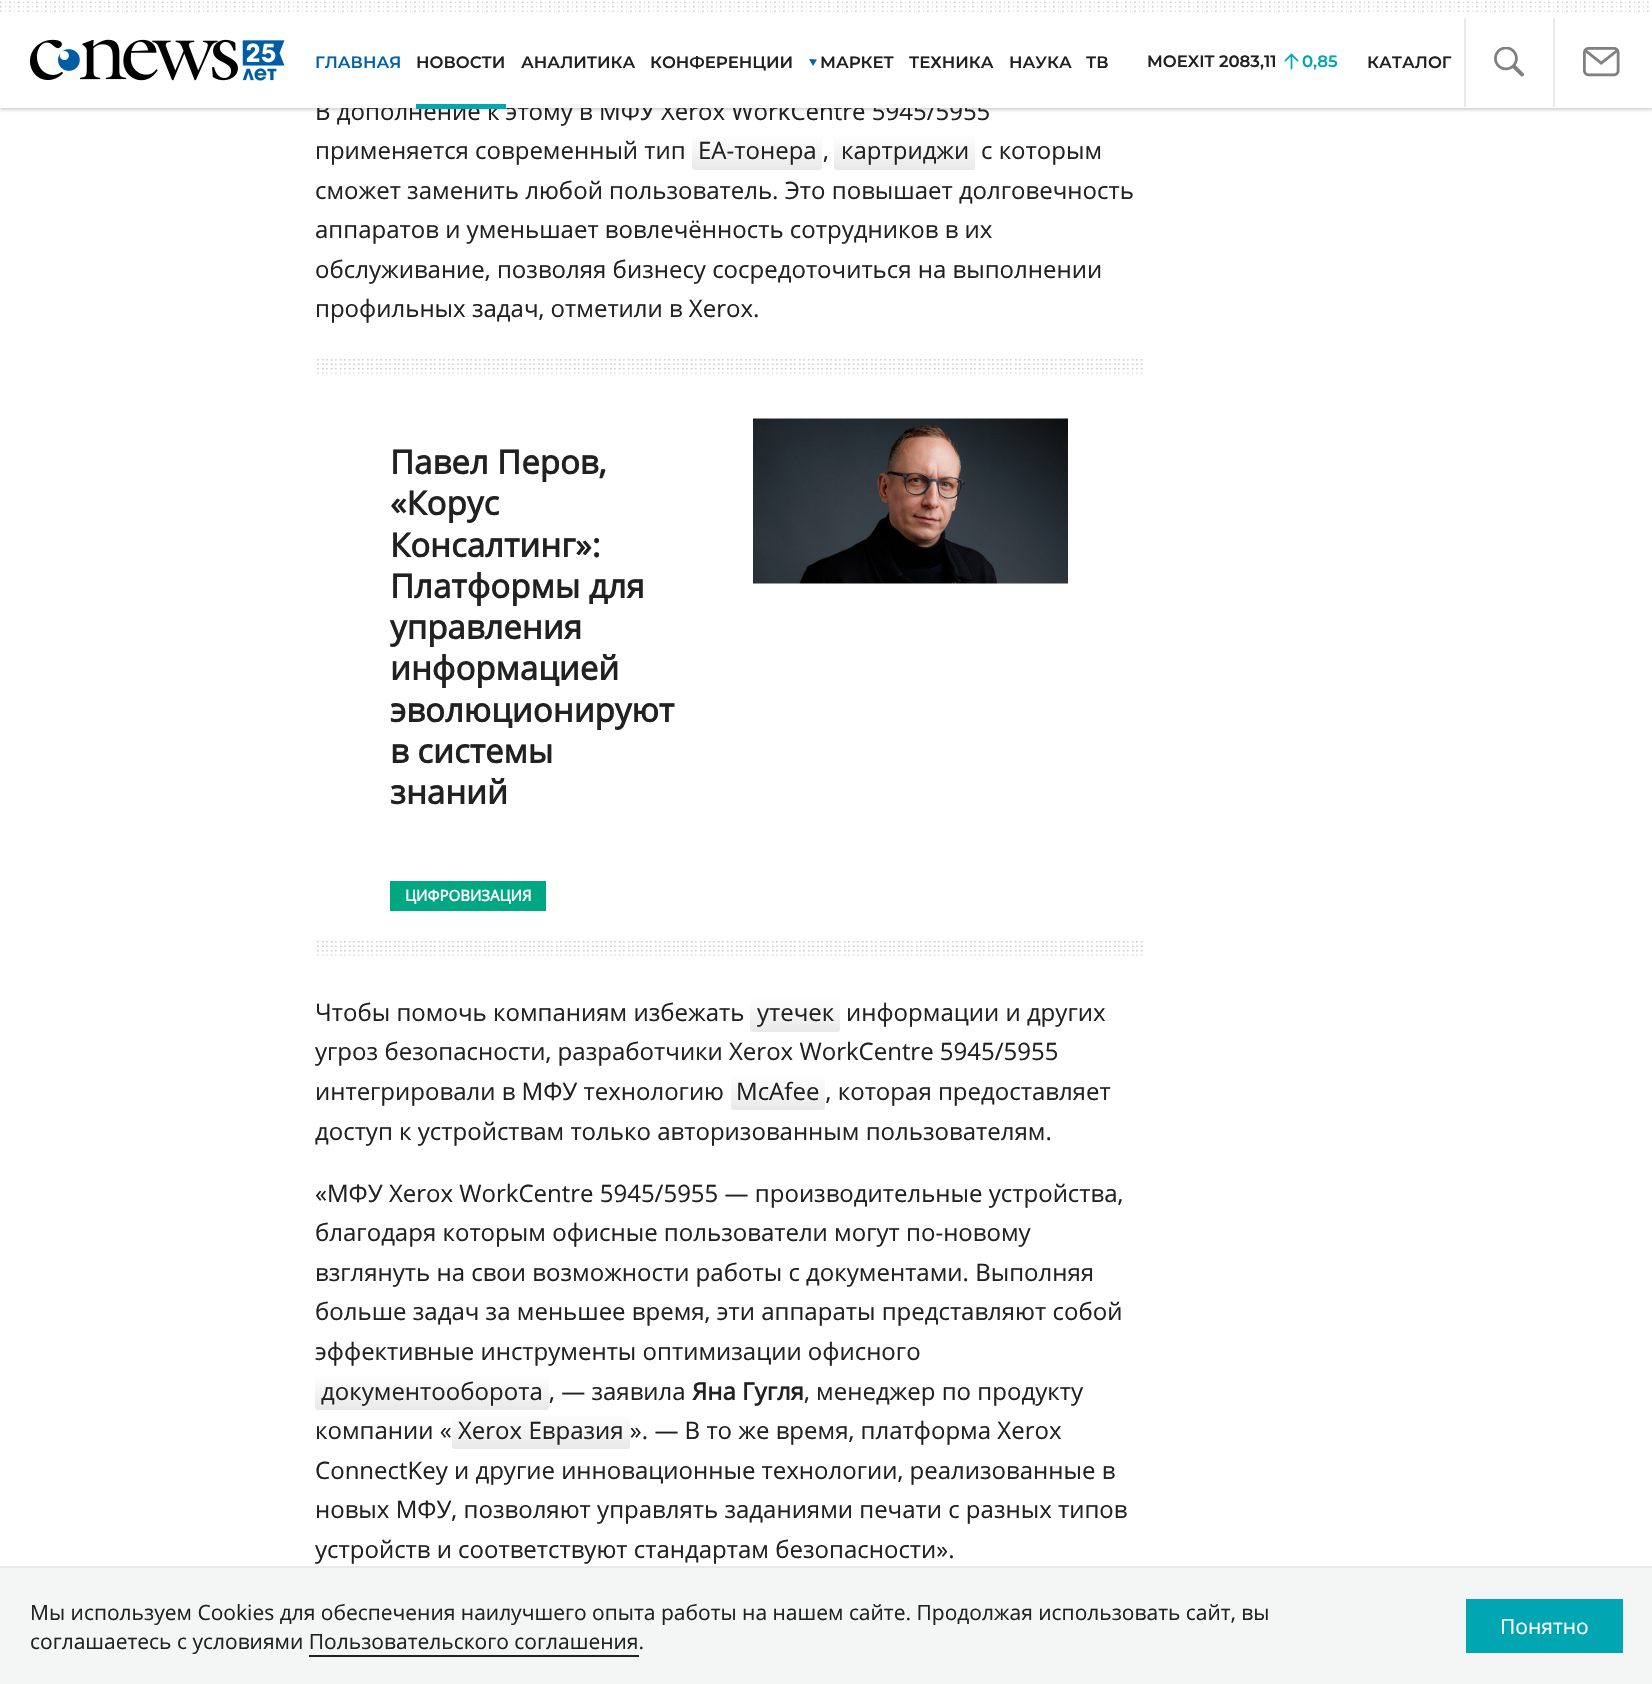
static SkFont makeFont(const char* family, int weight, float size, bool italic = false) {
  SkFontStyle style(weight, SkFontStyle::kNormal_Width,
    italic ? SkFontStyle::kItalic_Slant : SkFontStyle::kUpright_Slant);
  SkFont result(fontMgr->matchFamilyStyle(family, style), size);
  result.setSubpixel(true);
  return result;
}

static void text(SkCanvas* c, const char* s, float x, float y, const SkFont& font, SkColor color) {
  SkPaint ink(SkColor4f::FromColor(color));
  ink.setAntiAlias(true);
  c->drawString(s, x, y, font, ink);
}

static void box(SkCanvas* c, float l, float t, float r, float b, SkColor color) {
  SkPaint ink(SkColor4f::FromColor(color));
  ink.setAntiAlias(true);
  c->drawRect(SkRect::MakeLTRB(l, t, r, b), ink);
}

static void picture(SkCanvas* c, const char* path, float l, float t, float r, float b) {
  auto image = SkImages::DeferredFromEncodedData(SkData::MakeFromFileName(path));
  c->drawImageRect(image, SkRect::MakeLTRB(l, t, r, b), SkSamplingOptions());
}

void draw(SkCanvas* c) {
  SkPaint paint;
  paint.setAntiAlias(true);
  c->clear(0xffffffff);
  paint.setColor(0x33102027);
  paint.setMaskFilter(SkMaskFilter::MakeBlur(kNormal_SkBlurStyle, 1.5f));
  c->drawRect(SkRect::MakeLTRB(0, 2, 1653, 110), paint);
  paint.setMaskFilter(nullptr);
  SkFont face1 = makeFont("Open Sans", 400, 24);
  text(c, "В дополнение к этому в МФУ Xerox WorkCentre 5945/5955", 315, 120, face1, 0xff212121);
  box(c, 0, 0, 1652, 108, 0xffffffff);
  picture(c, "img_01.png", 0, 1, 1649, 12);
  picture(c, "img_02.png", 30, 39, 285, 81);
  SkFont face2 = makeFont("Montserrat", 600, 16.5f);
  text(c, "ГЛАВНАЯ", 315, 68, face2, 0xff0164a7);
  text(c, "НОВОСТИ", 416, 68, face2, 0xff212121);
  box(c, 416, 104, 506, 109, 0xff00a7b3);
  text(c, "АНАЛИТИКА", 521, 68, face2, 0xff212121);
  text(c, "КОНФЕРЕНЦИИ", 650, 68, face2, 0xff212121);
  paint.setColor(0xff0164a7);
  c->drawPath(SkPathBuilder().moveTo(813, 66).lineTo(809, 59).lineTo(817, 59.5f).close().detach(), paint);
  text(c, "МАРКЕТ", 820, 68, face2, 0xff212121);
  text(c, "ТЕХНИКА", 909, 68, face2, 0xff212121);
  text(c, "НАУКА", 1009, 68, face2, 0xff212121);
  text(c, "ТВ", 1086, 68, face2, 0xff212121);
  text(c, "MOEXIT 2083,11", 1147, 67, face2, 0xff212121);
  picture(c, "img_03.png", 1284, 53, 1299, 70);
  text(c, "0,85", 1302, 67, face2, 0xff00a7b3);
  text(c, "КАТАЛОГ", 1367, 68, face2, 0xff212121);
  box(c, 1464, 18, 1466, 107, 0xffe9e9e9);
  picture(c, "img_04.png", 1494, 47, 1524, 77);
  box(c, 1553, 18, 1555, 107, 0xffe9e9e9);
  picture(c, "img_05.png", 1583, 47, 1620, 77);
  text(c, "применяется современный тип", 315, 159, face1, 0xff212121);
  {
    const SkColor colors[] = {0xffffffff, 0xffe9e9e9, 0xffffffff};
    const float stops[] = {0.08f, 0.99f, 1};
    const SkPoint ends[] = {{757, 131}, {757, 170}};
    paint.setShader(SkGradientShader::MakeLinear(ends, colors, stops, 3, SkTileMode::kClamp));
    paint.setAlpha(255);
  }
  c->drawRoundRect(SkRect::MakeLTRB(692, 131, 822, 170), 3, 3, paint);
  text(c, "EA-тонера ,", 698, 159, face1, 0xff212121);
  {
    const SkColor colors[] = {0xffffffff, 0xffe9e9e9, 0xffffffff};
    const float stops[] = {0.08f, 0.99f, 1};
    const SkPoint ends[] = {{905, 131}, {905, 170}};
    paint.setShader(SkGradientShader::MakeLinear(ends, colors, stops, 3, SkTileMode::kClamp));
    paint.setAlpha(255);
  }
  c->drawRoundRect(SkRect::MakeLTRB(834, 131, 975, 170), 3, 3, paint);
  text(c, "картриджи", 841, 159, face1, 0xff212121);
  text(c, "с которым", 981, 159, face1, 0xff212121);
  text(c, "сможет заменить любой пользователь. Это повышает долговечность", 315, 199, face1, 0xff212121);
  text(c, "аппаратов и уменьшает вовлечённость сотрудников в их", 315, 238, face1, 0xff212121);
  text(c, "обслуживание, позволяя бизнесу сосредоточиться на выполнении", 315, 278, face1, 0xff212121);
  text(c, "профильных задач, отметили в Xerox.", 315, 317, face1, 0xff212121);
  picture(c, "img_06.png", 317, 359, 1143, 374);
  SkFont face3 = makeFont("Open Sans", 700, 33);
  text(c, "Павел Перов,", 390, 474, face3, 0xff212121);
  text(c, "«Корус", 390, 515, face3, 0xff212121);
  text(c, "Консалтинг»:", 390, 557, face3, 0xff212121);
  text(c, "Платформы для", 390, 598, face3, 0xff212121);
  text(c, "управления", 390, 639, face3, 0xff212121);
  text(c, "информацией", 390, 680, face3, 0xff212121);
  text(c, "эволюционируют", 390, 722, face3, 0xff212121);
  text(c, "в системы", 390, 763, face3, 0xff212121);
  text(c, "знаний", 390, 804, face3, 0xff212121);
  box(c, 390, 881, 546, 911, 0xff00a782);
  SkFont face4 = makeFont("Open Sans", 700, 15);
  text(c, "ЦИФРОВИЗАЦИЯ", 405, 901, face4, 0xffffffff);
  picture(c, "img_07.png", 753, 418, 1068, 584);
  picture(c, "img_06.png", 317, 941, 1143, 956);
  text(c, "Чтобы помочь компаниям избежать", 315, 1021, face1, 0xff212121);
  {
    const SkColor colors[] = {0xffffffff, 0xffe9e9e9, 0xffffffff};
    const float stops[] = {0.08f, 0.99f, 1};
    const SkPoint ends[] = {{795, 993}, {795, 1032}};
    paint.setShader(SkGradientShader::MakeLinear(ends, colors, stops, 3, SkTileMode::kClamp));
    paint.setAlpha(255);
  }
  c->drawRoundRect(SkRect::MakeLTRB(750, 993, 840, 1032), 3, 3, paint);
  text(c, "утечек", 757, 1021, face1, 0xff212121);
  text(c, "информации и других", 846, 1021, face1, 0xff212121);
  text(c, "угроз безопасности, разработчики Xerox WorkCentre 5945/5955", 315, 1060, face1, 0xff212121);
  text(c, "интегрировали в МФУ технологию", 315, 1100, face1, 0xff212121);
  {
    const SkColor colors[] = {0xffffffff, 0xffe9e9e9, 0xffffffff};
    const float stops[] = {0.08f, 0.99f, 1};
    const SkPoint ends[] = {{778, 1071}, {778, 1110}};
    paint.setShader(SkGradientShader::MakeLinear(ends, colors, stops, 3, SkTileMode::kClamp));
    paint.setAlpha(255);
  }
  c->drawRoundRect(SkRect::MakeLTRB(731, 1071, 825, 1110), 3, 3, paint);
  text(c, "McAfee , которая предоставляет", 736, 1100, face1, 0xff212121);
  text(c, "доступ к устройствам только авторизованным пользователям.", 315, 1140, face1, 0xff212121);
  text(c, "«МФУ Xerox WorkCentre 5945/5955 — производительные устройства,", 315, 1202, face1, 0xff212121);
  text(c, "благодаря которым офисные пользователи могут по-новому", 315, 1241, face1, 0xff212121);
  text(c, "взглянуть на свои возможности работы с документами. Выполняя", 315, 1281, face1, 0xff212121);
  text(c, "больше задач за меньшее время, эти аппараты представляют собой", 315, 1320, face1, 0xff212121);
  text(c, "эффективные инструменты оптимизации офисного", 315, 1360, face1, 0xff212121);
  {
    const SkColor colors[] = {0xffffffff, 0xffe9e9e9, 0xffffffff};
    const float stops[] = {0.08f, 0.99f, 1};
    const SkPoint ends[] = {{432, 1371}, {432, 1410}};
    paint.setShader(SkGradientShader::MakeLinear(ends, colors, stops, 3, SkTileMode::kClamp));
    paint.setAlpha(255);
  }
  c->drawRoundRect(SkRect::MakeLTRB(315, 1371, 549, 1410), 3, 3, paint);
  text(c, "документооборота , — заявила", 321, 1400, face1, 0xff212121);
  SkFont face5 = makeFont("Open Sans", 700, 24);
  text(c, "Яна Гугля", 692, 1400, face5, 0xff212121);
  text(c, ", менеджер по продукту", 804, 1400, face1, 0xff212121);
  text(c, "компании «", 315, 1439, face1, 0xff212121);
  {
    const SkColor colors[] = {0xffffffff, 0xffe9e9e9, 0xffffffff};
    const float stops[] = {0.08f, 0.99f, 1};
    const SkPoint ends[] = {{541, 1410}, {541, 1449}};
    paint.setShader(SkGradientShader::MakeLinear(ends, colors, stops, 3, SkTileMode::kClamp));
    paint.setAlpha(255);
  }
  c->drawRoundRect(SkRect::MakeLTRB(452, 1410, 630, 1449), 3, 3, paint);
  text(c, "Xerox Евразия ». — В то же время, платформа Xerox", 458, 1439, face1, 0xff212121);
  text(c, "ConnectKey и другие инновационные технологии, реализованные в", 315, 1479, face1, 0xff212121);
  text(c, "новых МФУ, позволяют управлять заданиями печати с разных типов", 315, 1518, face1, 0xff212121);
  text(c, "устройств и соответствуют стандартам безопасности».", 315, 1558, face1, 0xff212121);
  box(c, 0, 1568, 1652, 1684, 0xfff4f5f5);
  box(c, 0, 1566, 1652, 1568, 0xffe9e9e9);
  SkFont face6 = makeFont("Open Sans", 400, 21);
  text(c, "Мы используем Сookies для обеспечения наилучшего опыта работы на нашем сайте. Продолжая использовать сайт, вы", 30, 1620, face6, 0xff212121);
  text(c, "соглашаетесь с условиями Пользовательского соглашения.", 30, 1649, face6, 0xff212121);
  box(c, 309, 1655, 639, 1657, 0xff212121);
  box(c, 1466, 1599, 1623, 1653, 0xff00a7b3);
  text(c, "Понятно", 1500, 1634, face6, 0xffffffff);
}
